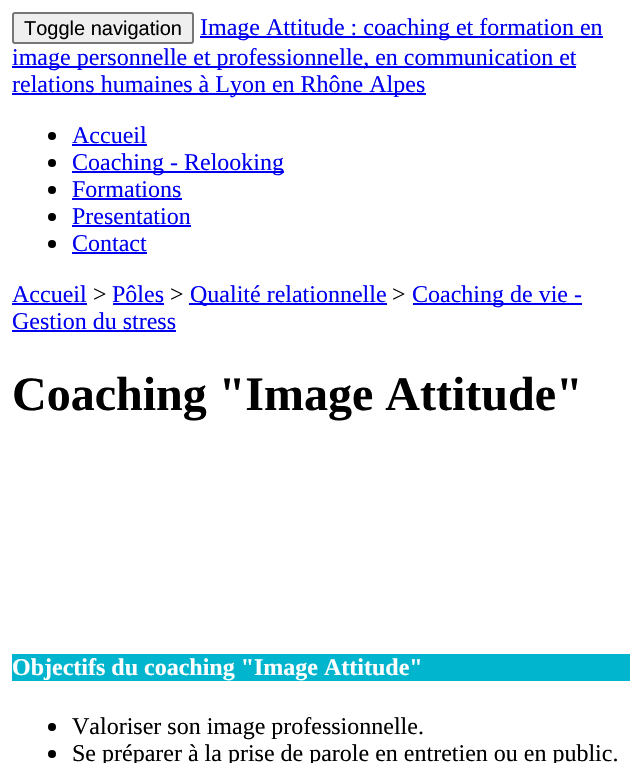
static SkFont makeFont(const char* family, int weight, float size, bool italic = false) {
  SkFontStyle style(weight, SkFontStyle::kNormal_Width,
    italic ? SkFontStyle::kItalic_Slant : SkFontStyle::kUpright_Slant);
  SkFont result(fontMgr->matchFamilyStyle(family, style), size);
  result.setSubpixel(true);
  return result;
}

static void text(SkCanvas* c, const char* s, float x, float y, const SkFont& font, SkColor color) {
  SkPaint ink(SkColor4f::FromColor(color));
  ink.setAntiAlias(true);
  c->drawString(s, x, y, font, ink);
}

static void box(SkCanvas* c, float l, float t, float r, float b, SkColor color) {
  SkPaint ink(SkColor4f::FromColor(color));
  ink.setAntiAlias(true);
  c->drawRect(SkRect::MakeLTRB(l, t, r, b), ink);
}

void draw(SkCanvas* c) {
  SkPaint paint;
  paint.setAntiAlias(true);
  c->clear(0xffffffff);
  paint.setColor(0xffefefef);
  c->drawRoundRect(SkRect::MakeLTRB(13, 13, 193, 43), 2, 2, paint);
  paint.setStyle(SkPaint::kStroke_Style);
  paint.setStrokeWidth(2);
  paint.setColor(0xff767676);
  c->drawRoundRect(SkRect::MakeLTRB(13, 13, 193, 43), 2, 2, paint);
  SkFont face1 = makeFont("Liberation Sans", 400, 20);
  text(c, "Toggle navigation", 24, 35, face1, 0xff000000);
  box(c, 200, 36, 603, 38, 0xff0000ee);
  SkFont face2 = makeFont("Liberation Serif", 400, 24);
  text(c, "Image Attitude : coaching et formation en", 200, 35, face2, 0xff0000ee);
  box(c, 12, 66, 576, 68, 0xff0000ee);
  text(c, "image personnelle et professionnelle, en communication et", 12, 65, face2, 0xff0000ee);
  box(c, 12, 93, 426, 95, 0xff0000ee);
  text(c, "relations humaines à Lyon en Rhône Alpes", 12, 92, face2, 0xff0000ee);
  paint.setStyle(SkPaint::kFill_Style);
  paint.setColor(0xff000000);
  c->drawCircle(52, 136, 4, paint);
  text(c, "Accueil", 72, 143, face2, 0xff0000ee);
  box(c, 72, 144, 147, 146, 0xff0000ee);
  c->drawCircle(52, 163, 4, paint);
  box(c, 72, 171, 284, 173, 0xff0000ee);
  text(c, "Coaching - Relooking", 72, 170, face2, 0xff0000ee);
  c->drawCircle(52, 190, 4, paint);
  text(c, "Formations", 72, 197, face2, 0xff0000ee);
  box(c, 72, 198, 182, 200, 0xff0000ee);
  c->drawCircle(52, 217, 4, paint);
  text(c, "Presentation", 72, 224, face2, 0xff0000ee);
  box(c, 72, 225, 191, 227, 0xff0000ee);
  c->drawCircle(52, 244, 4, paint);
  text(c, "Contact", 72, 251, face2, 0xff0000ee);
  box(c, 72, 252, 147, 254, 0xff0000ee);
  text(c, "Accueil", 12, 302, face2, 0xff0000ee);
  box(c, 12, 303, 87, 305, 0xff0000ee);
  text(c, ">", 93, 302, face2, 0xff000000);
  text(c, "Pôles", 112, 302, face2, 0xff0000ee);
  box(c, 113, 303, 164, 305, 0xff0000ee);
  text(c, ">", 170, 302, face2, 0xff000000);
  box(c, 189, 303, 387, 305, 0xff0000ee);
  text(c, "Qualité relationnelle", 190, 302, face2, 0xff0000ee);
  text(c, ">", 392, 302, face2, 0xff000000);
  box(c, 413, 303, 582, 305, 0xff0000ee);
  text(c, "Coaching de vie -", 412, 302, face2, 0xff0000ee);
  text(c, "Gestion du stress", 12, 329, face2, 0xff0000ee);
  box(c, 12, 330, 176, 332, 0xff0000ee);
  SkFont face3 = makeFont("Liberation Serif", 700, 48);
  text(c, "Coaching \"Image Attitude\"", 12, 410, face3, 0xff000000);
  box(c, 12, 654, 630, 681, 0xff00b5cd);
  SkFont face4 = makeFont("Liberation Serif", 700, 24);
  text(c, "Objectifs du coaching \"Image Attitude\"", 12, 675, face4, 0xffffffff);
  c->drawCircle(52, 727, 4, paint);
  text(c, "Valoriser son image professionnelle.", 72, 734, face2, 0xff000000);
  c->drawCircle(52, 754, 4, paint);
  text(c, "Se préparer à la prise de parole en entretien ou en public.", 72, 761, face2, 0xff000000);
}
